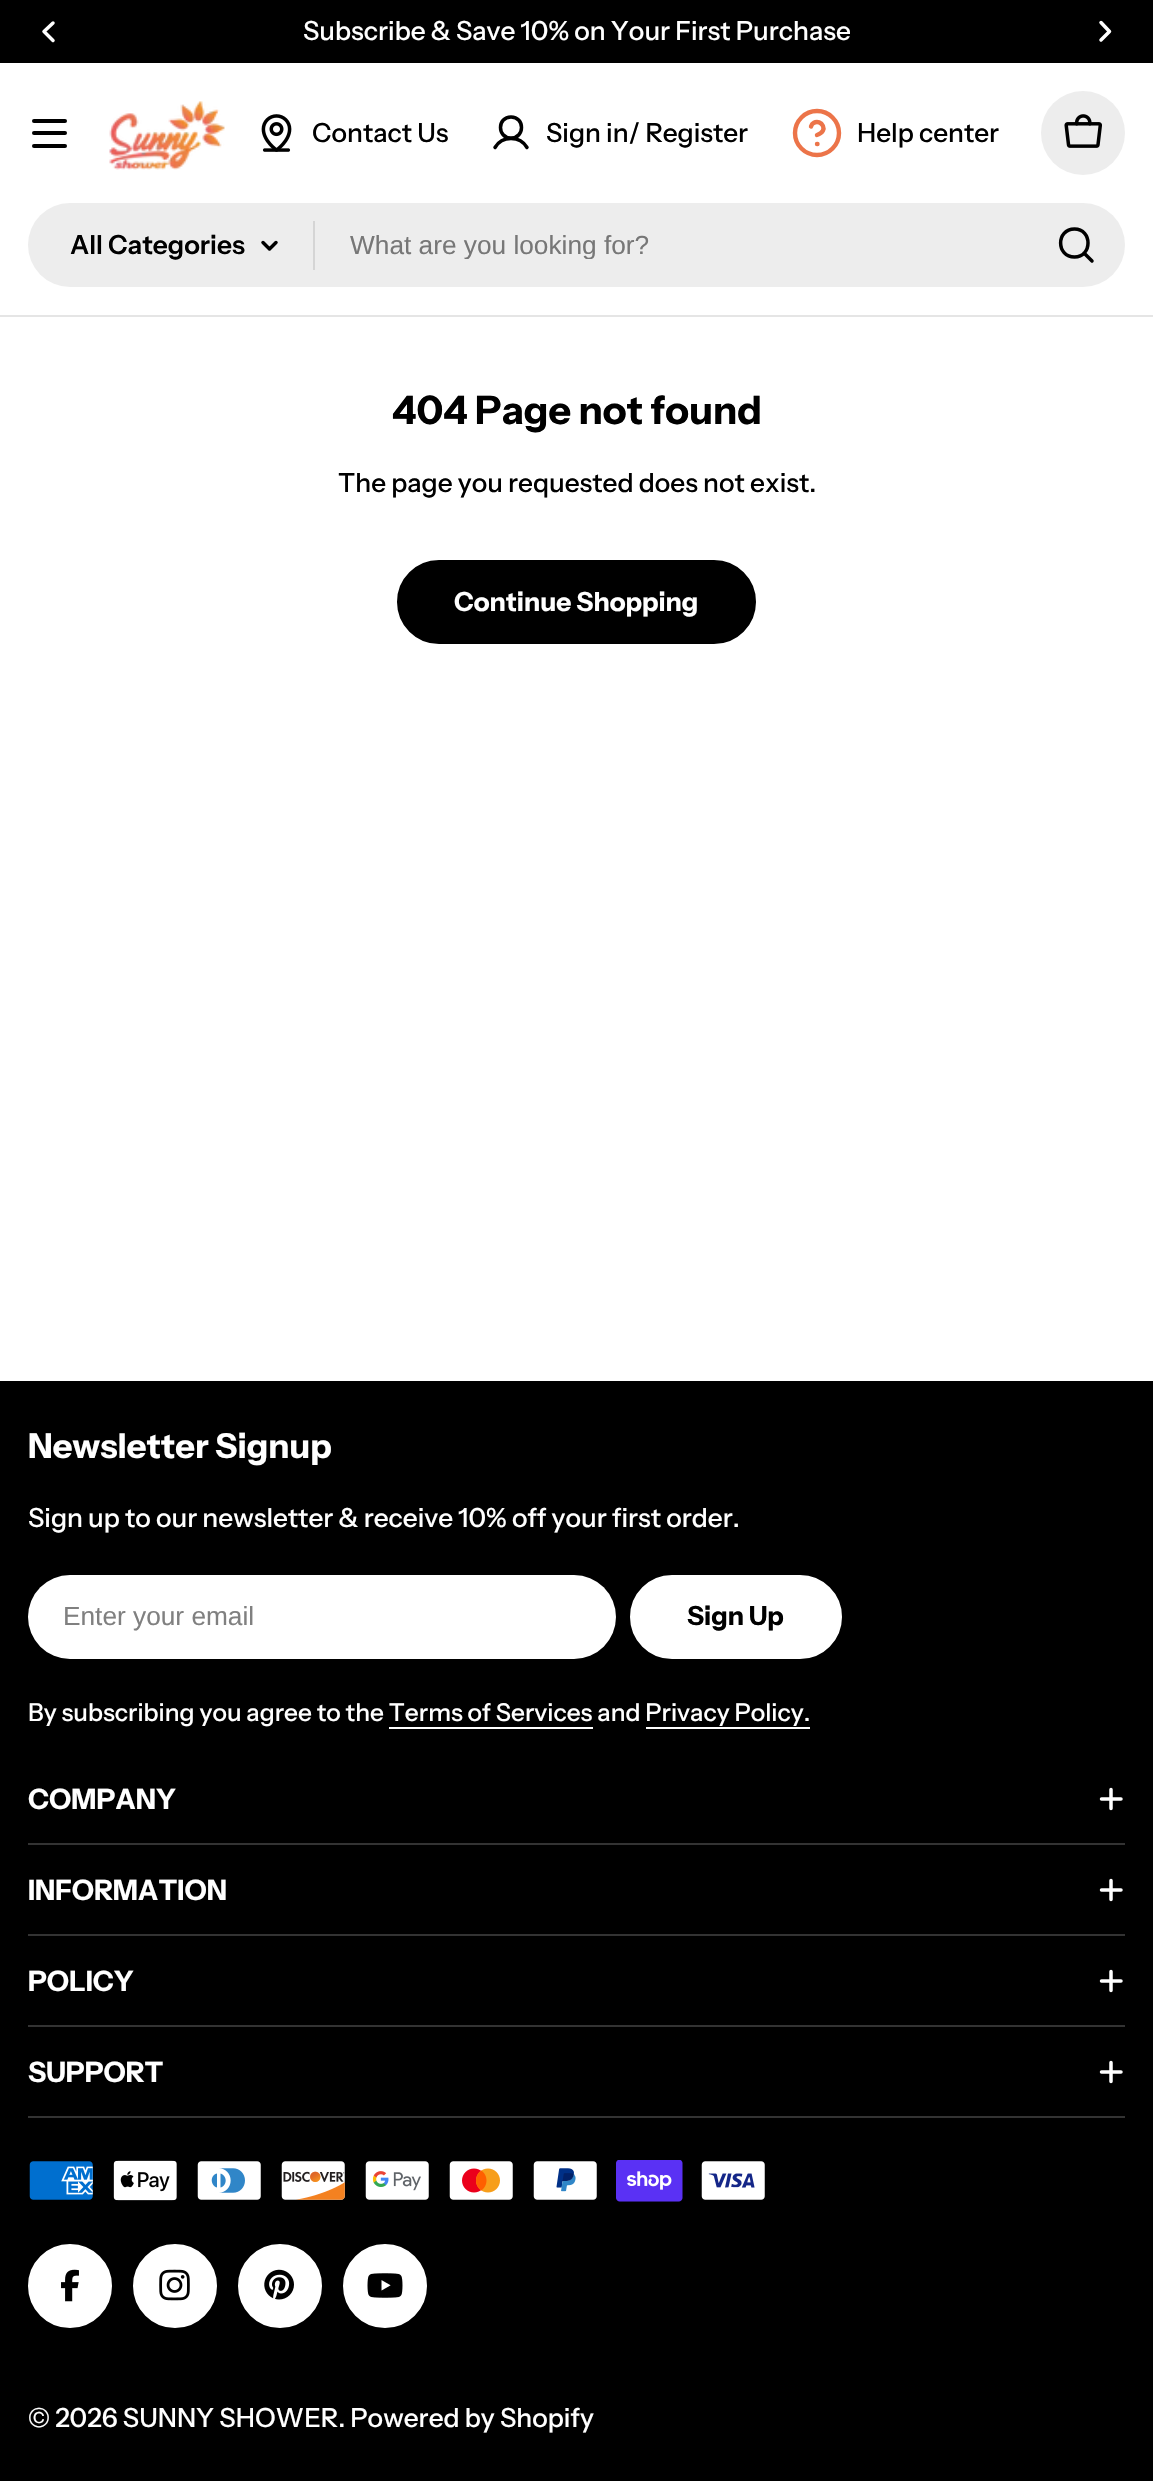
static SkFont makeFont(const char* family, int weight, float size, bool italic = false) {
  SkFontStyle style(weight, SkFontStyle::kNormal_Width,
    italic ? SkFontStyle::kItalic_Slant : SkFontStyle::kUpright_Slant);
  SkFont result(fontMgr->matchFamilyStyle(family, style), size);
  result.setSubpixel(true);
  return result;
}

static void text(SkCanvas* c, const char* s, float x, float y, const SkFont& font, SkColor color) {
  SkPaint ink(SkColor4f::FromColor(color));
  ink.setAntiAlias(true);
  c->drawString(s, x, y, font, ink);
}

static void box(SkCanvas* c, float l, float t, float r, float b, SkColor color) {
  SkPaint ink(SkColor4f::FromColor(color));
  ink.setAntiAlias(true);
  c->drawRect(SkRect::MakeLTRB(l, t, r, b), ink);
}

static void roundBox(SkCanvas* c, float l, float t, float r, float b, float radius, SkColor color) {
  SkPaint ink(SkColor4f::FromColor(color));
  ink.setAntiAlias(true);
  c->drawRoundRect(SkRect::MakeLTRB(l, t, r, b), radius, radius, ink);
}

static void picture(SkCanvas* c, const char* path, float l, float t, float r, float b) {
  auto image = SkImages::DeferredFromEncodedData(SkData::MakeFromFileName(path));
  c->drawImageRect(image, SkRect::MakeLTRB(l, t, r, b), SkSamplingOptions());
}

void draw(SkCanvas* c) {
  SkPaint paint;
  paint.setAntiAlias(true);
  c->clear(0xffffffff);
  box(c, 0, 0, 1153, 63, 0xff000000);
  paint.setStyle(SkPaint::kStroke_Style);
  paint.setStrokeWidth(3.5f);
  paint.setStrokeCap(SkPaint::kRound_Cap);
  paint.setStrokeJoin(SkPaint::kRound_Join);
  paint.setColor(0xffffffff);
  c->drawPath(SkPathBuilder().moveTo(53, 40.5f).lineTo(44, 31.5f).lineTo(53, 23).detach(), paint);
  c->drawPath(SkPathBuilder().moveTo(1101, 22.5f).lineTo(1109.5f, 31.5f).lineTo(1101, 40).detach(), paint);
  SkFont face1 = makeFont("Instrument Sans", 500, 26.25f);
  text(c, "Subscribe & Save 10% on Your First Purchase", 303, 40, face1, 0xffffffff);
  roundBox(c, 32, 131, 67, 135, 2, 0xff000000);
  roundBox(c, 32, 119, 67, 123, 2, 0xff000000);
  roundBox(c, 32, 144, 67, 148, 2, 0xff000000);
  picture(c, "img_01.png", 109, 101, 225, 170);
  picture(c, "img_02.png", 261, 114, 292, 152);
  text(c, "Contact Us", 312, 142, face1, 0xff000000);
  paint.setColor(0xff000000);
  c->drawPath(SkPathBuilder().moveTo(511, 138).cubicTo(525, 138, 525, 117, 511, 117).cubicTo(497, 117, 497, 138, 511, 138).close().moveTo(495, 147.5f).cubicTo(502, 135.5f, 520, 135.5f, 527, 147.5f).detach(), paint);
  text(c, "Sign in/ Register", 546, 142, face1, 0xff000000);
  paint.setStrokeWidth(4.4f);
  paint.setStrokeCap(SkPaint::kButt_Cap);
  paint.setStrokeJoin(SkPaint::kMiter_Join);
  paint.setColor(0xffec7449);
  c->drawCircle(817, 133, 22, paint);
  paint.setStrokeCap(SkPaint::kRound_Cap);
  paint.setStrokeJoin(SkPaint::kRound_Join);
  c->drawPath(SkPathBuilder().moveTo(811, 126.5f).cubicTo(811.5f, 125, 812.5f, 123.5f, 813.5f, 123).cubicTo(821.5f, 118.5f, 829.5f, 131, 817, 135).moveTo(817, 144).lineTo(817.5f, 144).detach(), paint);
  text(c, "Help center", 857, 142, face1, 0xff000000);
  paint.setStyle(SkPaint::kFill_Style);
  paint.setColor(0xffededed);
  c->drawCircle(1083, 133, 42, paint);
  picture(c, "img_03.png", 1064, 114, 1102, 148);
  roundBox(c, 28, 203, 1125, 287, 42, 0xffededed);
  SkFont face2 = makeFont("Instrument Sans", 600, 26.25f);
  text(c, "All Categories", 70, 254, face2, 0xff000000);
  paint.setStyle(SkPaint::kStroke_Style);
  paint.setStrokeWidth(3.5f);
  paint.setColor(0xff000000);
  c->drawPath(SkPathBuilder().moveTo(276, 242.5f).lineTo(269.5f, 249).lineTo(263, 242.5f).detach(), paint);
  box(c, 313, 221, 315, 270, 0xffd5d5d5);
  c->save();
  c->clipRect(SkRect::MakeLTRB(350, 229, 1031, 259));
  SkFont face3 = makeFont("Liberation Sans", 400, 26.25f);
  text(c, "What are you looking for?", 350, 254, face3, 0xff777777);
  c->restore();
  c->drawPath(SkPathBuilder().moveTo(1074.5f, 257).cubicTo(1092.5f, 257, 1092.5f, 229, 1074.5f, 229).cubicTo(1056, 229, 1056, 257, 1074.5f, 257).close().moveTo(1084, 253).lineTo(1092, 261).detach(), paint);
  box(c, 0, 315, 1153, 317, 0xffe5e5e5);
  SkFont face4 = makeFont("Instrument Sans", 700, 39.25f);
  text(c, "404 Page not found", 392, 424, face4, 0xff000000);
  text(c, "The page you requested does not exist.", 338, 492, face1, 0xff000000);
  paint.setStyle(SkPaint::kFill_Style);
  c->drawRoundRect(SkRect::MakeLTRB(398, 561, 755, 643), 41, 41, paint);
  paint.setStyle(SkPaint::kStroke_Style);
  paint.setStrokeWidth(2);
  paint.setStrokeCap(SkPaint::kButt_Cap);
  paint.setStrokeJoin(SkPaint::kMiter_Join);
  c->drawRoundRect(SkRect::MakeLTRB(398, 561, 755, 643), 41, 41, paint);
  SkFont face5 = makeFont("Instrument Sans", 700, 26.25f);
  text(c, "Continue Shopping", 454, 611, face5, 0xffffffff);
  box(c, 0, 1381, 1153, 2481, 0xff000000);
  SkFont face6 = makeFont("Instrument Sans", 700, 34.25f);
  text(c, "Newsletter Signup", 28, 1458, face6, 0xffffffff);
  text(c, "Sign up to our newsletter & receive 10% off your first order.", 28, 1527, face1, 0xffffffff);
  roundBox(c, 28, 1575, 616, 1659, 42, 0xffffffff);
  text(c, "Enter your email", 63, 1625, face3, 0xff808080);
  paint.setStyle(SkPaint::kFill_Style);
  paint.setColor(0xffffffff);
  c->drawRoundRect(SkRect::MakeLTRB(631, 1576, 841, 1658), 41, 41, paint);
  paint.setStyle(SkPaint::kStroke_Style);
  c->drawRoundRect(SkRect::MakeLTRB(631, 1576, 841, 1658), 41, 41, paint);
  text(c, "Sign Up", 687, 1625, face5, 0xff000000);
  SkFont face7 = makeFont("Instrument Sans", 500, 24.5f);
  text(c, "By subscribing you agree to the Terms of Services and Privacy Policy.", 28, 1721, face7, 0xffffffff);
  box(c, 389, 1727, 593, 1729, 0xffffffff);
  box(c, 646, 1727, 810, 1729, 0xffffffff);
  box(c, 28, 1843, 1125, 1845, 0xff333333);
  SkFont face8 = makeFont("Instrument Sans", 700, 28);
  text(c, "COMPANY", 28, 1809, face8, 0xffffffff);
  paint.setStrokeWidth(3.5f);
  paint.setStrokeCap(SkPaint::kRound_Cap);
  paint.setStrokeJoin(SkPaint::kRound_Join);
  c->drawPath(SkPathBuilder().moveTo(1101.5f, 1799).lineTo(1121, 1799).moveTo(1111, 1789.5f).lineTo(1111, 1808.5f).detach(), paint);
  box(c, 28, 1934, 1125, 1936, 0xff333333);
  text(c, "INFORMATION", 28, 1900, face8, 0xffffffff);
  c->drawPath(SkPathBuilder().moveTo(1101.5f, 1890).lineTo(1121, 1890).moveTo(1111, 1880.5f).lineTo(1111, 1899.5f).detach(), paint);
  box(c, 28, 2025, 1125, 2027, 0xff333333);
  text(c, "POLICY", 28, 1991, face8, 0xffffffff);
  c->drawPath(SkPathBuilder().moveTo(1101.5f, 1981).lineTo(1121, 1981).moveTo(1111, 1971.5f).lineTo(1111, 1990.5f).detach(), paint);
  box(c, 28, 2116, 1125, 2118, 0xff333333);
  text(c, "SUPPORT", 28, 2082, face8, 0xffffffff);
  c->drawPath(SkPathBuilder().moveTo(1101.5f, 2072).lineTo(1121, 2072).moveTo(1111, 2062.5f).lineTo(1111, 2081.5f).detach(), paint);
  picture(c, "img_04.png", 29, 2161, 93, 2200);
  picture(c, "img_05.png", 113, 2160, 177, 2201);
  picture(c, "img_06.png", 197, 2161, 261, 2200);
  picture(c, "img_07.png", 281, 2161, 345, 2200);
  picture(c, "img_08.png", 365, 2161, 429, 2200);
  picture(c, "img_09.png", 449, 2161, 513, 2200);
  picture(c, "img_10.png", 533, 2161, 597, 2200);
  picture(c, "img_11.png", 616, 2160, 683, 2202);
  picture(c, "img_12.png", 701, 2161, 765, 2200);
  paint.setStyle(SkPaint::kFill_Style);
  c->drawCircle(70, 2286, 41, paint);
  paint.setStyle(SkPaint::kStroke_Style);
  paint.setStrokeWidth(2);
  paint.setStrokeCap(SkPaint::kButt_Cap);
  paint.setStrokeJoin(SkPaint::kMiter_Join);
  c->drawCircle(70, 2286, 41, paint);
  picture(c, "img_13.png", 61, 2269, 79, 2302);
  paint.setStyle(SkPaint::kFill_Style);
  c->drawCircle(175, 2286, 41, paint);
  paint.setStyle(SkPaint::kStroke_Style);
  c->drawCircle(175, 2286, 41, paint);
  picture(c, "img_14.png", 159, 2269, 190, 2301);
  paint.setStyle(SkPaint::kFill_Style);
  c->drawCircle(280, 2286, 41, paint);
  paint.setStyle(SkPaint::kStroke_Style);
  c->drawCircle(280, 2286, 41, paint);
  picture(c, "img_15.png", 264, 2269, 294, 2300);
  paint.setStyle(SkPaint::kFill_Style);
  c->drawCircle(385, 2286, 41, paint);
  paint.setStyle(SkPaint::kStroke_Style);
  c->drawCircle(385, 2286, 41, paint);
  picture(c, "img_16.png", 367, 2273, 403, 2298);
  text(c, "© 2026 SUNNY SHOWER. Powered by Shopify", 28, 2427, face1, 0xffffffff);
}
